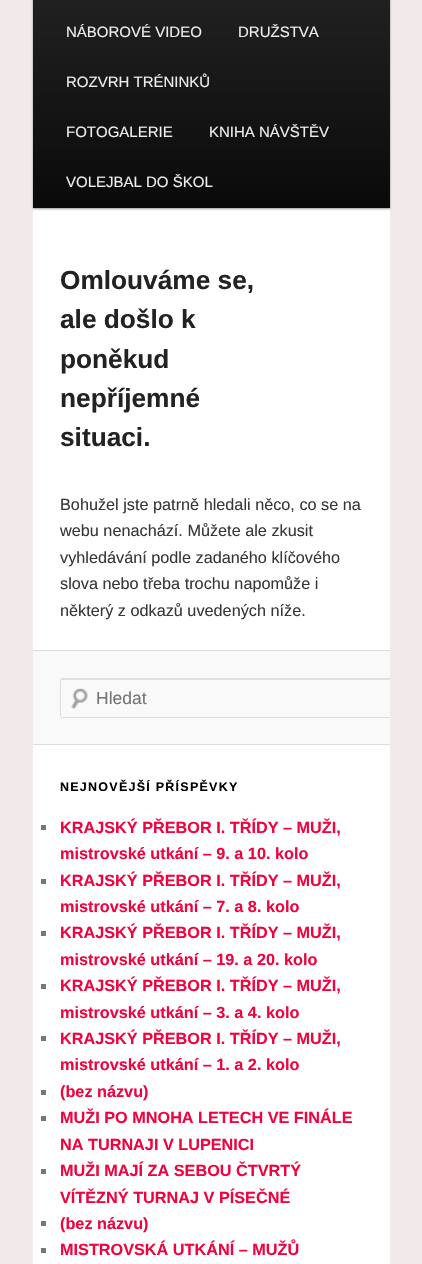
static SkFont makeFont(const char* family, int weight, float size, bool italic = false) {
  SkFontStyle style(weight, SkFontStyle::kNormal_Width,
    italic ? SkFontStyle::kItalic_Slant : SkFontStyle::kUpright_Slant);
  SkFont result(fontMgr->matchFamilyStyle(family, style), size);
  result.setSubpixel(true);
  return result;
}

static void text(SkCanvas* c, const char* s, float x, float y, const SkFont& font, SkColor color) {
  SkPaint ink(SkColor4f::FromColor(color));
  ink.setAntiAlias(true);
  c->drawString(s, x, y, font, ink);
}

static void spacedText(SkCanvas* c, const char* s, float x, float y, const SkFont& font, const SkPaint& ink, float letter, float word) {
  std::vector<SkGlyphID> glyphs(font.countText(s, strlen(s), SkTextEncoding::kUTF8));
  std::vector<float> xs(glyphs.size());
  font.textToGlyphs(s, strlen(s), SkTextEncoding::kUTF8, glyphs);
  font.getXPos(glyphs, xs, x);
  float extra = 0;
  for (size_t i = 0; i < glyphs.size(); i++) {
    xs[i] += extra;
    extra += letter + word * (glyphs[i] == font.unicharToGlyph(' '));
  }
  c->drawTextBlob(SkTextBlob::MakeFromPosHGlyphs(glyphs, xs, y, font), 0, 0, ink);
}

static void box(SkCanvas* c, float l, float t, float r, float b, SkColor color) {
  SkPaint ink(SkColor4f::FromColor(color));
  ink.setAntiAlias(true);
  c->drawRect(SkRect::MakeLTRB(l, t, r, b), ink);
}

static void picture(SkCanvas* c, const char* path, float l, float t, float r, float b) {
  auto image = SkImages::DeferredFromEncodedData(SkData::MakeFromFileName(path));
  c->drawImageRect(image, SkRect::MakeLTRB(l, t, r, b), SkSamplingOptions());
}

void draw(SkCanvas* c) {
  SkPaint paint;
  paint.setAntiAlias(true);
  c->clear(0xfff2eaea);
  box(c, 33, 208, 390, 1264, 0xffffffff);
  paint.setColor(0x66000000);
  paint.setMaskFilter(SkMaskFilter::MakeBlur(kNormal_SkBlurStyle, 1));
  c->drawRect(SkRect::MakeLTRB(33, -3, 390, 209), paint);
  paint.setMaskFilter(nullptr);
  {
    const SkColor colors[] = {0xff252525, 0xff0a0a0a};
    const float stops[] = {0, 1};
    const SkPoint ends[] = {{211, -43}, {211, 208}};
    paint.setShader(SkGradientShader::MakeLinear(ends, colors, stops, 2, SkTileMode::kClamp));
    paint.setAlpha(255);
  }
  c->drawRect(SkRect::MakeLTRB(33, 0, 390, 208), paint);
  SkFont face1 = makeFont("Liberation Sans", 400, 15);
  text(c, "NÁBOROVÉ VIDEO", 66, 37, face1, 0xffeeeeee);
  text(c, "DRUŽSTVA", 238, 37, face1, 0xffeeeeee);
  text(c, "ROZVRH TRÉNINKŮ", 66, 87, face1, 0xffeeeeee);
  text(c, "FOTOGALERIE", 66, 137, face1, 0xffeeeeee);
  text(c, "KNIHA NÁVŠTĚV", 209, 137, face1, 0xffeeeeee);
  text(c, "VOLEJBAL DO ŠKOL", 66, 187, face1, 0xffeeeeee);
  SkFont face2 = makeFont("Liberation Sans", 700, 26.25f);
  text(c, "Omlouváme se,", 60, 289, face2, 0xff222222);
  text(c, "ale došlo k", 60, 328, face2, 0xff222222);
  text(c, "poněkud", 60, 368, face2, 0xff222222);
  text(c, "nepříjemné", 60, 407, face2, 0xff222222);
  text(c, "situaci.", 60, 446, face2, 0xff222222);
  SkFont face3 = makeFont("Liberation Sans", 400, 16.25f);
  text(c, "Bohužel jste patrně hledali něco, co se na", 60, 510, face3, 0xff373737);
  text(c, "webu nenachází. Můžete ale zkusit", 60, 536, face3, 0xff373737);
  text(c, "vyhledávání podle zadaného klíčového", 60, 563, face3, 0xff373737);
  text(c, "slova nebo třeba trochu napomůže i", 60, 589, face3, 0xff373737);
  text(c, "některý z odkazů uvedených níže.", 60, 616, face3, 0xff373737);
  box(c, 33, 651, 390, 744, 0xfff9f9f9);
  box(c, 33, 650, 390, 651, 0xffdddddd);
  box(c, 33, 744, 390, 745, 0xffdddddd);
  picture(c, "img_01.png", 71, 688, 88, 709);
  c->save();
  c->clipRect(SkRect::MakeLTRB(33, 651, 390, 744));
  paint.setShader(nullptr);
  paint.setColor(0xffe0e0e0);
  c->drawPath(SkPathBuilder().moveTo(62, 680).lineTo(395, 680).lineTo(396, 681).lineTo(396, 680).lineTo(395, 679).lineTo(61, 679).lineTo(61, 681).close().detach(), paint);
  paint.setStyle(SkPaint::kStroke_Style);
  paint.setStrokeWidth(1);
  paint.setColor(0xffdddddd);
  c->drawRoundRect(SkRect::MakeLTRB(60.5f, 678.5f, 397.5f, 717.5f), 2, 2, paint);
  c->restore();
  SkFont face4 = makeFont("Liberation Sans", 400, 17.5f);
  text(c, "Hledat", 96, 704, face4, 0xff757575);
  SkFont face5 = makeFont("Liberation Sans", 700, 12.5f);
  paint.setStyle(SkPaint::kFill_Style);
  paint.setColor(0xff000000);
  spacedText(c, "NEJNOVĚJŠÍ PŘÍSPĚVKY", 60, 791, face5, paint, 1.25f, 0);
  box(c, 41, 825, 46, 830, 0xff777777);
  SkFont face6 = makeFont("Liberation Sans", 700, 16.25f);
  text(c, "KRAJSKÝ PŘEBOR I. TŘÍDY – MUŽI,", 60, 833, face6, 0xffef043f);
  text(c, "mistrovské utkání – 9. a 10. kolo", 60, 859, face6, 0xffef043f);
  box(c, 41, 879, 46, 884, 0xff777777);
  text(c, "KRAJSKÝ PŘEBOR I. TŘÍDY – MUŽI,", 60, 886, face6, 0xffef043f);
  text(c, "mistrovské utkání – 7. a 8. kolo", 60, 912, face6, 0xffef043f);
  box(c, 41, 931, 46, 936, 0xff777777);
  text(c, "KRAJSKÝ PŘEBOR I. TŘÍDY – MUŽI,", 60, 938, face6, 0xffef043f);
  text(c, "mistrovské utkání – 19. a 20. kolo", 60, 965, face6, 0xffef043f);
  box(c, 41, 984, 46, 989, 0xff777777);
  text(c, "KRAJSKÝ PŘEBOR I. TŘÍDY – MUŽI,", 60, 991, face6, 0xffef043f);
  text(c, "mistrovské utkání – 3. a 4. kolo", 60, 1018, face6, 0xffef043f);
  box(c, 41, 1036, 46, 1041, 0xff777777);
  text(c, "KRAJSKÝ PŘEBOR I. TŘÍDY – MUŽI,", 60, 1044, face6, 0xffef043f);
  text(c, "mistrovské utkání – 1. a 2. kolo", 60, 1070, face6, 0xffef043f);
  box(c, 41, 1090, 46, 1095, 0xff777777);
  text(c, "(bez názvu)", 60, 1097, face6, 0xffef043f);
  box(c, 41, 1116, 46, 1121, 0xff777777);
  text(c, "MUŽI PO MNOHA LETECH VE FINÁLE", 60, 1123, face6, 0xffef043f);
  text(c, "NA TURNAJI V LUPENICI", 60, 1150, face6, 0xffef043f);
  box(c, 41, 1169, 46, 1174, 0xff777777);
  text(c, "MUŽI MAJÍ ZA SEBOU ČTVRTÝ", 60, 1176, face6, 0xffef043f);
  text(c, "VÍTĚZNÝ TURNAJ V PÍSEČNÉ", 60, 1203, face6, 0xffef043f);
  box(c, 41, 1221, 46, 1226, 0xff777777);
  text(c, "(bez názvu)", 60, 1229, face6, 0xffef043f);
  box(c, 41, 1248, 46, 1253, 0xff777777);
  text(c, "MISTROVSKÁ UTKÁNÍ – MUŽŮ", 60, 1255, face6, 0xffef043f);
}
